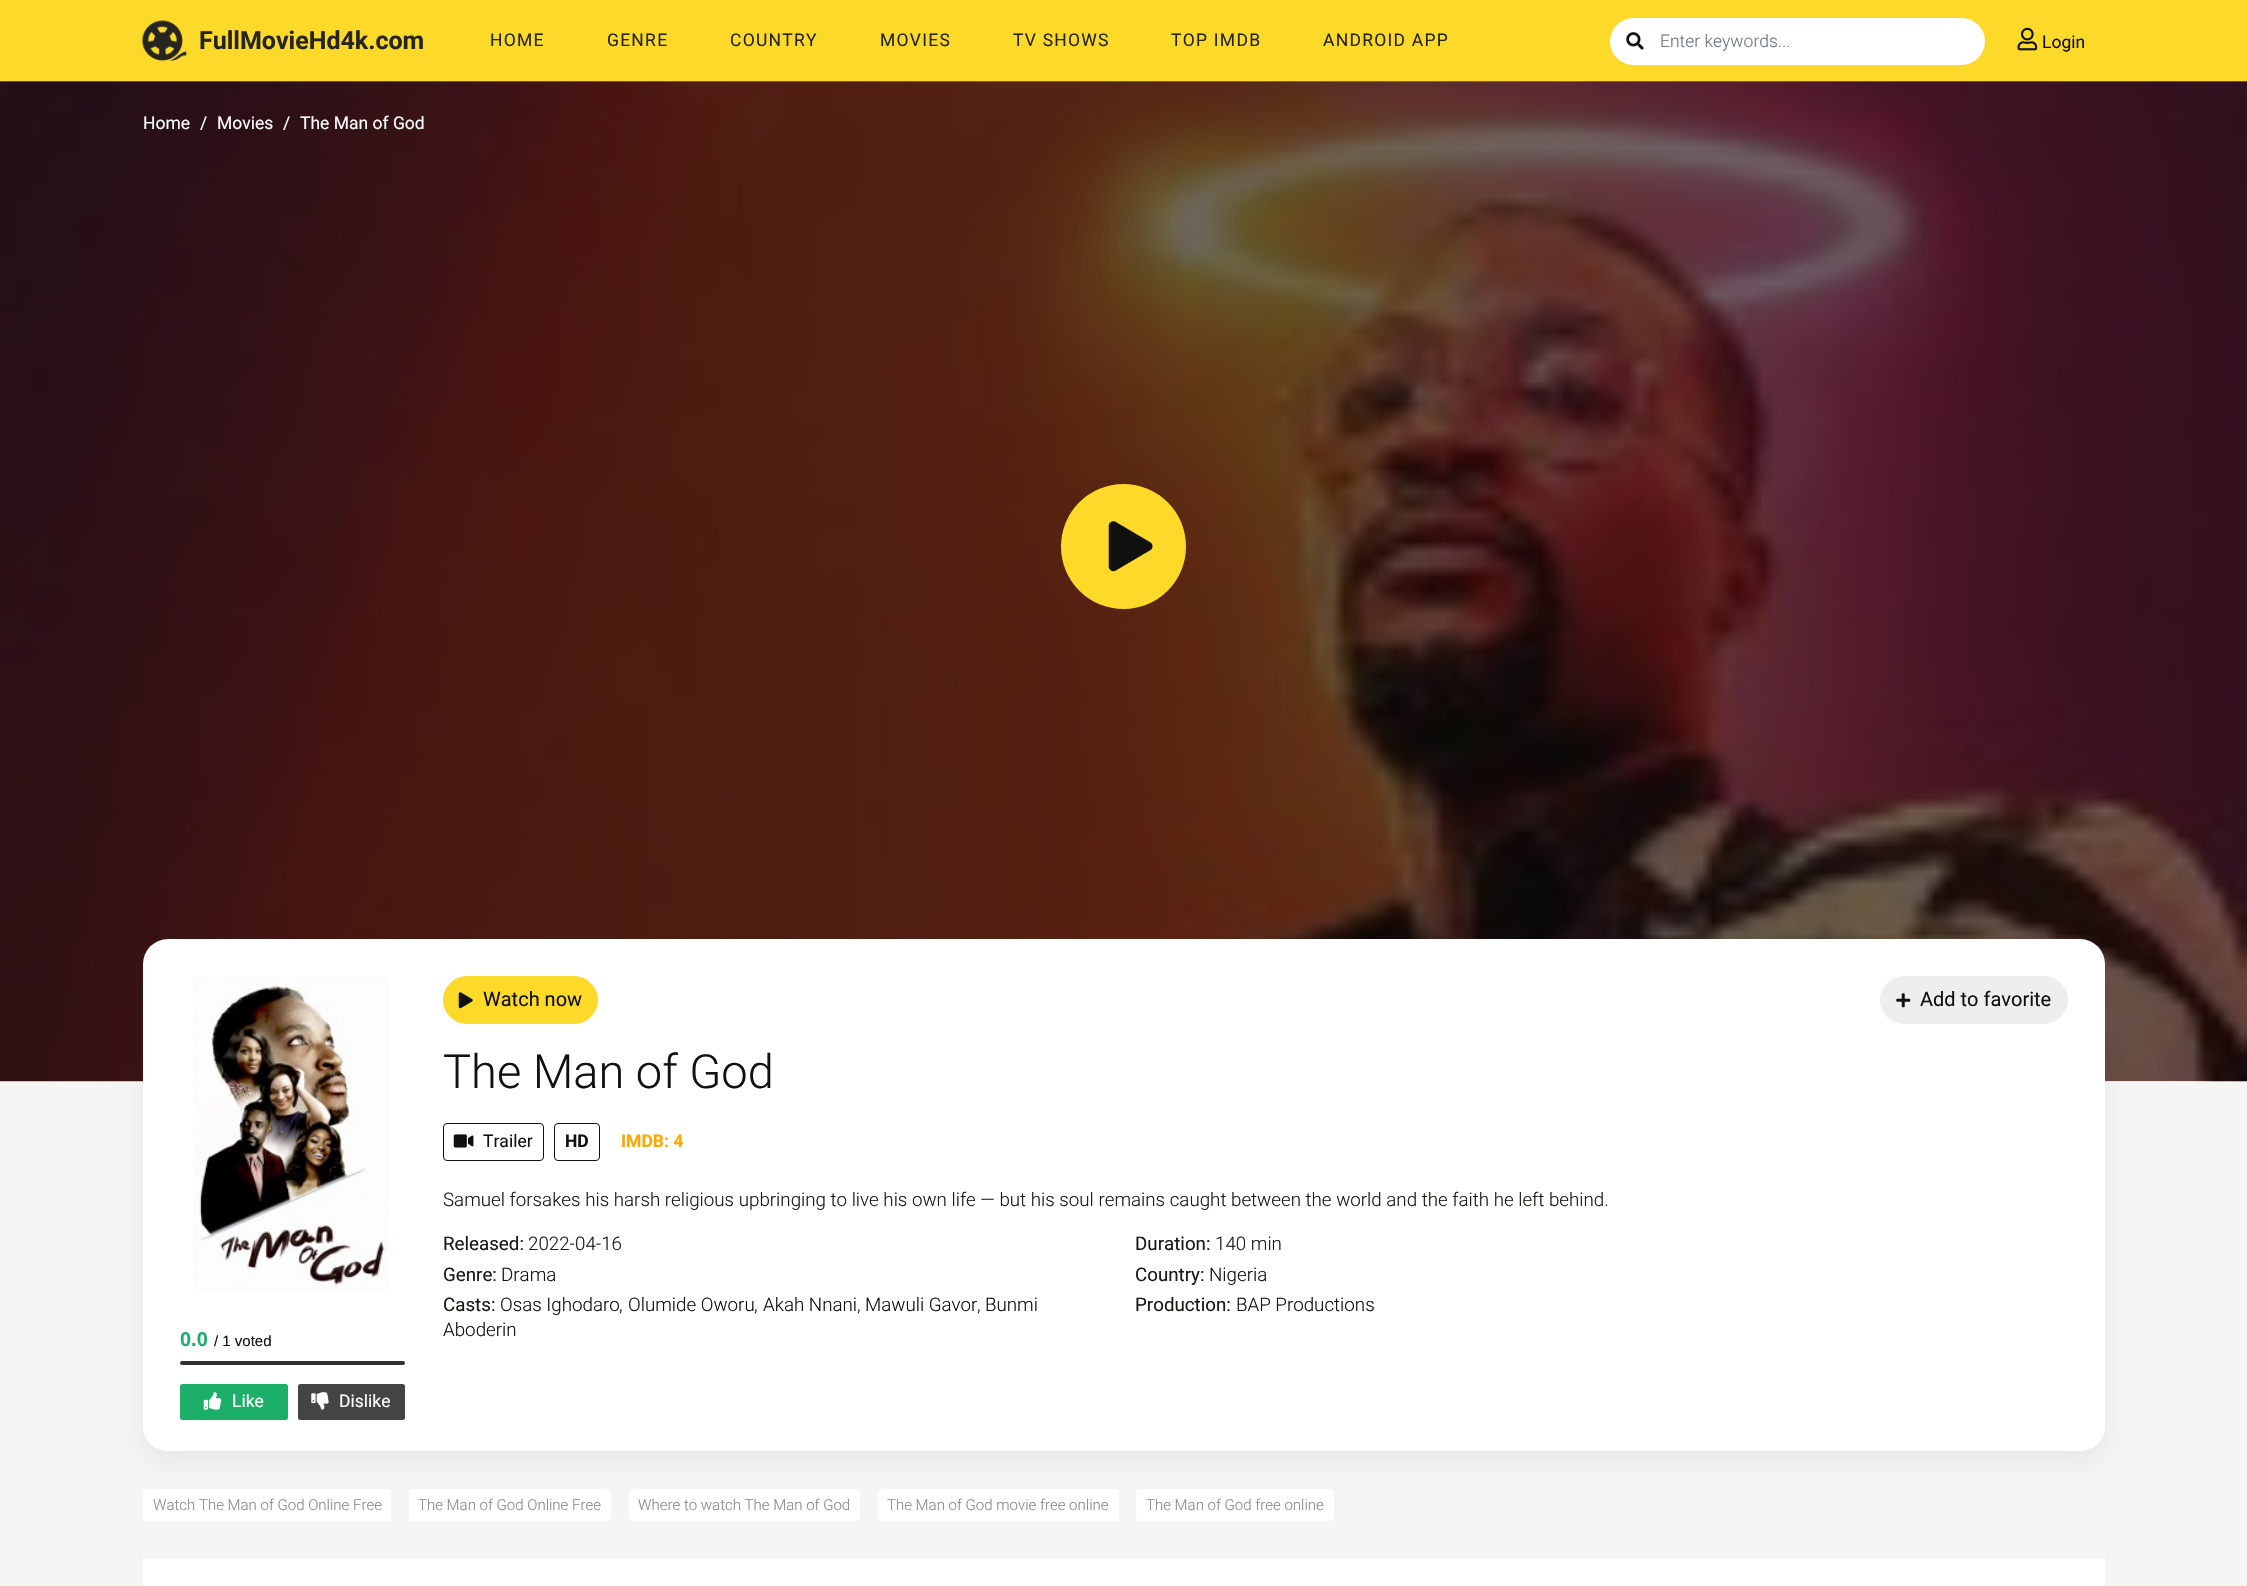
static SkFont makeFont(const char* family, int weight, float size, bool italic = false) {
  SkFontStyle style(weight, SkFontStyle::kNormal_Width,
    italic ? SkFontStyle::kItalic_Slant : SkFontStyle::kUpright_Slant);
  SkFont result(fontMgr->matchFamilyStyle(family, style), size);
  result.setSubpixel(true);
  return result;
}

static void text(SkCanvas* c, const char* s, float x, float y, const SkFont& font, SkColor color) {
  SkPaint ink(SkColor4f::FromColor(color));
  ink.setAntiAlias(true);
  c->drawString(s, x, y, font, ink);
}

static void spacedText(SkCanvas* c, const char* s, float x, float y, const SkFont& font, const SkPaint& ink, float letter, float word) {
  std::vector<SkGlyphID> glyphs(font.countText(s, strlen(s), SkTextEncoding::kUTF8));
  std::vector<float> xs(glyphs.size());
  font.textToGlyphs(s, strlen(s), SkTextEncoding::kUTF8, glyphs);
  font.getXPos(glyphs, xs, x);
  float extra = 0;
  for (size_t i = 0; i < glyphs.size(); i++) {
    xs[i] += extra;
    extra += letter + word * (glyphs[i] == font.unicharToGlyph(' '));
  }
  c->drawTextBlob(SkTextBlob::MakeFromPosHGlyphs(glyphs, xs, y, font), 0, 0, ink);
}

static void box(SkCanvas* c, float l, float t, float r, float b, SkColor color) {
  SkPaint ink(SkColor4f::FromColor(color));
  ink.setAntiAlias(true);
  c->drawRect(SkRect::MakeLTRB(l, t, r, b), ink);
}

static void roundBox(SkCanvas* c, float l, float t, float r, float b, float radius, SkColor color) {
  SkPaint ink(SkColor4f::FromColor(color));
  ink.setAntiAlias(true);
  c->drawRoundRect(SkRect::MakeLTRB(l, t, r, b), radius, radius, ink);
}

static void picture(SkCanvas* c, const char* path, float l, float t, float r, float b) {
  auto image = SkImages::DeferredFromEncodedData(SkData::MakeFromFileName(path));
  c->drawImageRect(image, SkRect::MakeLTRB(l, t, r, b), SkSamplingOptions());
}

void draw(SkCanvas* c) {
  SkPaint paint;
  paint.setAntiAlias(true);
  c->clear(0xfff5f5f3);
  box(c, 0, 0, 2247, 81, 0xfffdd92a);
  picture(c, "img_01.png", 142, 20, 187, 61);
  SkFont face1 = makeFont("Roboto", 700, 25);
  text(c, "FullMovieHd4k.com", 199, 49, face1, 0xff262520);
  SkFont face2 = makeFont("Roboto", 400, 17.5f);
  paint.setColor(0xff262520);
  spacedText(c, "HOME", 490, 46, face2, paint, 1.25f, 0);
  spacedText(c, "GENRE", 607, 46, face2, paint, 1.25f, 0);
  spacedText(c, "COUNTRY", 730, 46, face2, paint, 1.25f, 0);
  spacedText(c, "MOVIES", 880, 46, face2, paint, 1.25f, 0);
  spacedText(c, "TV SHOWS", 1013, 46, face2, paint, 1.25f, 0);
  spacedText(c, "TOP IMDB", 1171, 46, face2, paint, 1.25f, 0);
  spacedText(c, "ANDROID APP", 1323, 46, face2, paint, 1.25f, 0);
  roundBox(c, 1610, 18, 1985, 65, 23.5f, 0xffffffff);
  picture(c, "img_02.png", 1626, 32, 1644, 50);
  SkFont face3 = makeFont("Roboto", 300, 17.5f);
  text(c, "Enter keywords...", 1660, 47, face3, 0xff6c757d);
  picture(c, "img_03.png", 2017, 27, 2038, 51);
  text(c, "Login", 2042, 48, face2, 0xff111111);
  picture(c, "img_04.png", 0, 81, 2247, 1082);
  text(c, "Home", 143, 129, face2, 0xffffffff);
  text(c, "/", 200, 129, face2, 0xffffffff);
  text(c, "Movies", 217, 129, face2, 0xffffffff);
  text(c, "/", 283, 129, face2, 0xffffffff);
  text(c, "The Man of God", 300, 129, face2, 0xffffffff);
  paint.setColor(0xfffdd92a);
  c->drawCircle(1123.5f, 546.5f, 62.5f, paint);
  picture(c, "img_05.png", 1108, 521, 1153, 572);
  roundBox(c, 143, 1489, 391, 1521, 4, 0xffffffff);
  roundBox(c, 409, 1489, 611, 1521, 4, 0xffffffff);
  roundBox(c, 629, 1489, 860, 1521, 4, 0xffffffff);
  roundBox(c, 878, 1489, 1119, 1521, 4, 0xffffffff);
  roundBox(c, 1136, 1489, 1334, 1521, 4, 0xffffffff);
  paint.setColor(0x0d000000);
  paint.setMaskFilter(SkMaskFilter::MakeBlur(kNormal_SkBlurStyle, 12.5f));
  c->drawRoundRect(SkRect::MakeLTRB(143, 951, 2105, 1464), 25, 25, paint);
  paint.setMaskFilter(nullptr);
  roundBox(c, 143, 939, 2105, 1451, 25, 0xffffffff);
  paint.setColor(0xfffdd92a);
  c->drawRoundRect(SkRect::MakeLTRB(443.5f, 976.5f, 597.5f, 1023.5f), 23.5f, 23.5f, paint);
  paint.setStyle(SkPaint::kStroke_Style);
  paint.setStrokeWidth(1);
  c->drawRoundRect(SkRect::MakeLTRB(443.5f, 976.5f, 597.5f, 1023.5f), 23.5f, 23.5f, paint);
  picture(c, "img_06.png", 458, 992, 473, 1009);
  SkFont face4 = makeFont("Roboto", 400, 20);
  text(c, "Watch now", 483, 1006, face4, 0xff111111);
  paint.setStyle(SkPaint::kFill_Style);
  paint.setColor(0xffeeeeee);
  c->drawRoundRect(SkRect::MakeLTRB(1880.5f, 976.5f, 2067.5f, 1023.5f), 23.5f, 23.5f, paint);
  paint.setStyle(SkPaint::kStroke_Style);
  c->drawRoundRect(SkRect::MakeLTRB(1880.5f, 976.5f, 2067.5f, 1023.5f), 23.5f, 23.5f, paint);
  picture(c, "img_07.png", 1896, 993, 1911, 1008);
  text(c, "Add to favorite", 1920, 1006, face4, 0xff111111);
  SkFont face5 = makeFont("Roboto", 300, 47);
  text(c, "The Man of God", 443, 1088, face5, 0xff111111);
  paint.setColor(0xff111111);
  c->drawRoundRect(SkRect::MakeLTRB(443.5f, 1123.5f, 543.5f, 1160.5f), 3.5f, 3.5f, paint);
  picture(c, "img_08.png", 453, 1134, 474, 1148);
  text(c, "Trailer", 483, 1147, face2, 0xff111111);
  c->drawRoundRect(SkRect::MakeLTRB(554.5f, 1123.5f, 599.5f, 1160.5f), 3.5f, 3.5f, paint);
  SkFont face6 = makeFont("Roboto", 700, 17.5f);
  text(c, "HD", 565, 1147, face6, 0xff111111);
  text(c, "IMDB: 4", 621, 1147, face6, 0xffffa600);
  SkFont face7 = makeFont("Roboto", 300, 18.75f);
  text(c, "Samuel forsakes his harsh religious upbringing to live his own life — but his soul remains caught between the world and the faith he left behind.", 443, 1206, face7, 0xff1a1914);
  SkFont face8 = makeFont("Roboto", 400, 18.75f);
  text(c, "Released:", 443, 1250, face8, 0xff1a1914);
  text(c, "2022-04-16", 528, 1250, face7, 0xff1a1914);
  text(c, "Genre:", 443, 1281, face8, 0xff1a1914);
  text(c, "Drama", 501, 1281, face7, 0xff111111);
  text(c, "Casts:", 443, 1311, face8, 0xff1a1914);
  text(c, "Osas Ighodaro", 500, 1311, face7, 0xff111111);
  text(c, ",", 619, 1311, face7, 0xff1a1914);
  text(c, "Olumide Oworu", 628, 1311, face7, 0xff111111);
  text(c, ",", 754, 1311, face7, 0xff1a1914);
  text(c, "Akah Nnani", 763, 1311, face7, 0xff111111);
  text(c, ",", 857, 1311, face7, 0xff1a1914);
  text(c, "Mawuli Gavor", 865, 1311, face7, 0xff111111);
  text(c, ",", 977, 1311, face7, 0xff1a1914);
  text(c, "Bunmi", 985, 1311, face7, 0xff111111);
  text(c, "Aboderin", 443, 1336, face7, 0xff111111);
  text(c, "Duration:", 1135, 1250, face8, 0xff1a1914);
  text(c, "140 min", 1215, 1250, face7, 0xff1a1914);
  text(c, "Country:", 1135, 1281, face8, 0xff1a1914);
  text(c, "Nigeria", 1209, 1281, face7, 0xff111111);
  text(c, "Production:", 1135, 1311, face8, 0xff1a1914);
  text(c, "BAP Productions", 1236, 1311, face7, 0xff111111);
  picture(c, "img_09.png", 193, 977, 389, 1291);
  SkFont face9 = makeFont("Liberation Sans", 700, 20);
  text(c, "0.0", 180, 1346, face9, 0xff1baf69);
  SkFont face10 = makeFont("Liberation Sans", 400, 15);
  text(c, "/ 1 voted", 214, 1346, face10, 0xff111111);
  roundBox(c, 180, 1361, 405, 1365, 2, 0xff333333);
  roundBox(c, 180, 1384, 288, 1420, 2.5f, 0xff1baf69);
  picture(c, "img_10.png", 203, 1392, 222, 1410);
  text(c, "Like", 232, 1407, face2, 0xffffffff);
  roundBox(c, 298, 1384, 405, 1420, 2.5f, 0xff444444);
  picture(c, "img_11.png", 311, 1392, 329, 1410);
  text(c, "Dislike", 339, 1407, face2, 0xffffffff);
  SkFont face11 = makeFont("Roboto", 300, 15);
  text(c, "Watch The Man of God Online Free", 153, 1510, face11, 0xff888888);
  text(c, "The Man of God Online Free", 418, 1510, face11, 0xff888888);
  text(c, "Where to watch The Man of God", 638, 1510, face11, 0xff888888);
  text(c, "The Man of God movie free online", 887, 1510, face11, 0xff888888);
  text(c, "The Man of God free online", 1146, 1510, face11, 0xff888888);
  box(c, 143, 1559, 2105, 1586, 0xffffffff);
}
